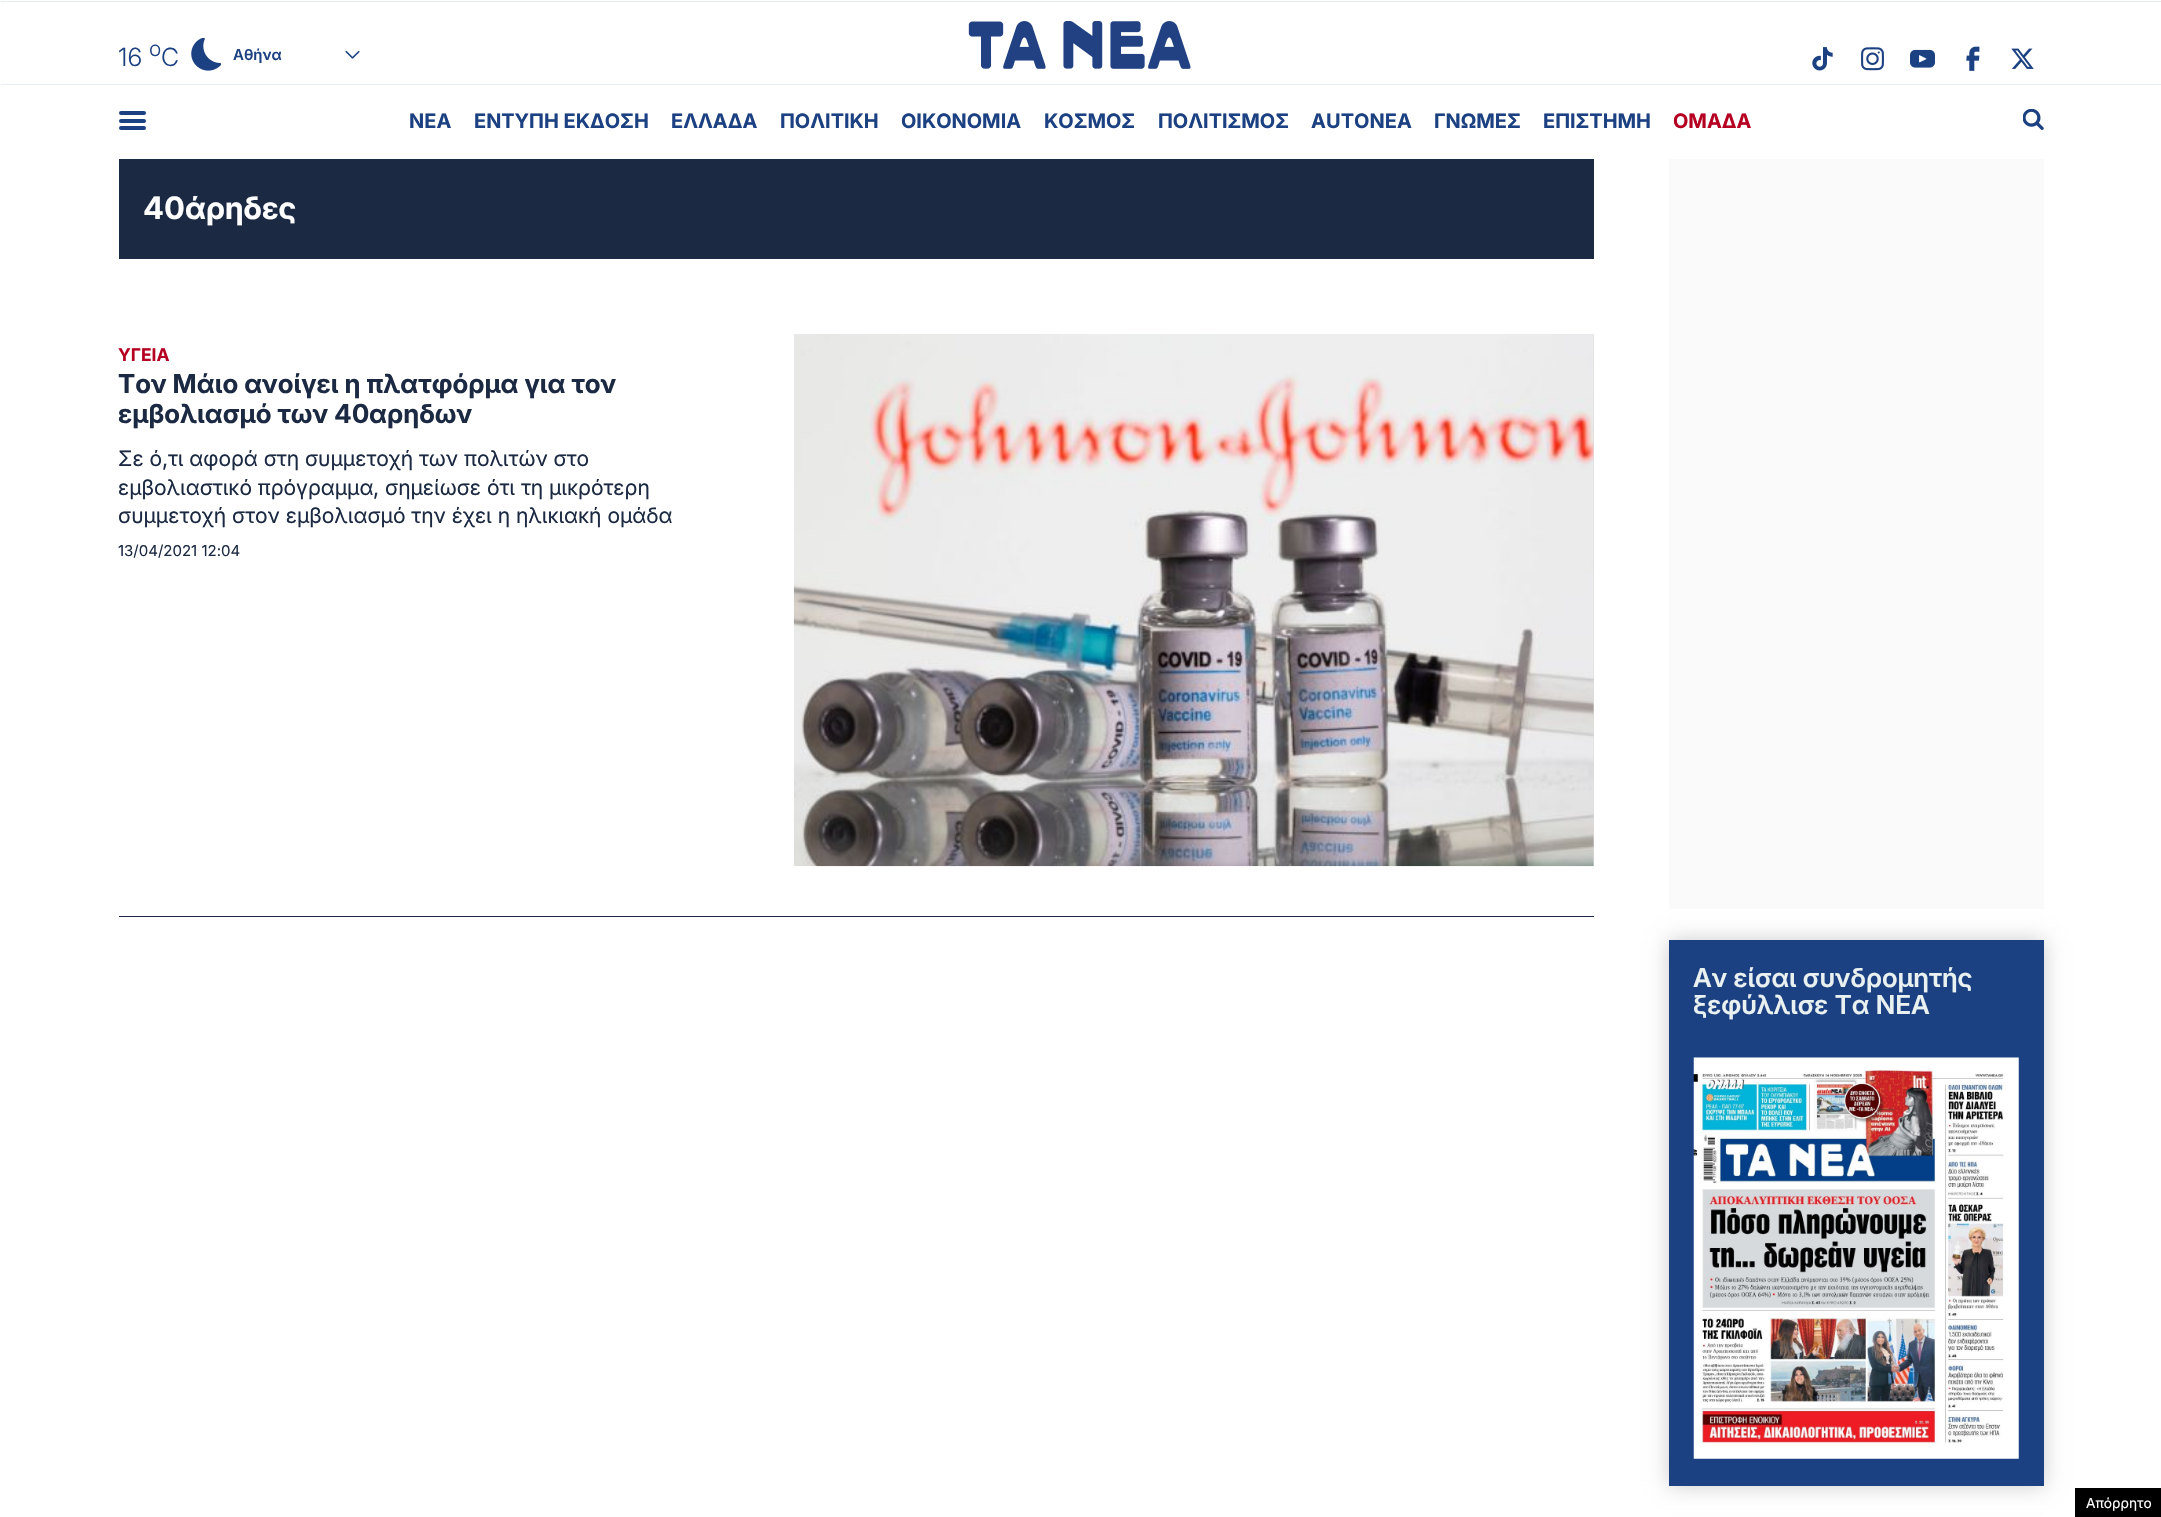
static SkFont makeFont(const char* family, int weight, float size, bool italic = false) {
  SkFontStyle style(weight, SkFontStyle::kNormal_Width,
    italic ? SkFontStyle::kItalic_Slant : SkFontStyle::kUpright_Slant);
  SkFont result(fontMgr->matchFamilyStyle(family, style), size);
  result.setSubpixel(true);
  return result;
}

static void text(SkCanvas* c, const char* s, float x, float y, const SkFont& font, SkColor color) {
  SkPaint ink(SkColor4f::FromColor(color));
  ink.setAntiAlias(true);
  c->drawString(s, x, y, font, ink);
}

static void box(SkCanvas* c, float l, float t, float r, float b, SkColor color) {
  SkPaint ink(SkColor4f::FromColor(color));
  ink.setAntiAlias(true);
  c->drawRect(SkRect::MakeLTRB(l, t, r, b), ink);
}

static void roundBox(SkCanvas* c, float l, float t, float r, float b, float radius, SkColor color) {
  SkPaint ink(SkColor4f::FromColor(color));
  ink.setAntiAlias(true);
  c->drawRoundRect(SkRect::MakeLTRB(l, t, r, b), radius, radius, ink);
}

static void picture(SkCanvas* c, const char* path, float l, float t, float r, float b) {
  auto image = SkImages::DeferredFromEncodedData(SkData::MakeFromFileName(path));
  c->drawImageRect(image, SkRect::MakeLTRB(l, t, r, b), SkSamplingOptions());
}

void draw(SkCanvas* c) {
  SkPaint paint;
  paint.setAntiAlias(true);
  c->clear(0xffffffff);
  box(c, 1, 1, 2161, 2, 0xffe8ecf3);
  picture(c, "img_01.png", 968, 21, 1191, 69);
  box(c, 1, 84, 2161, 85, 0xffe8ecf3);
  SkFont face1 = makeFont("Inter", 300, 25);
  text(c, "16", 118, 66, face1, 0xff1c4182);
  SkFont face2 = makeFont("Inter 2", 300, 21);
  text(c, "o", 149, 56, face2, 0xff1c4182);
  text(c, "C", 161, 66, face1, 0xff1c4182);
  picture(c, "img_02.png", 191, 38, 221, 71);
  picture(c, "img_03.png", 345, 50, 360, 59);
  SkFont face3 = makeFont("Inter", 600, 15);
  text(c, "Αθήνα", 233, 60, face3, 0xff1c4182);
  picture(c, "img_04.png", 1812, 47, 1833, 71);
  picture(c, "img_05.png", 1861, 47, 1884, 71);
  picture(c, "img_06.png", 1910, 49, 1935, 68);
  picture(c, "img_07.png", 1966, 46, 1980, 71);
  picture(c, "img_08.png", 2011, 48, 2034, 69);
  roundBox(c, 119, 111, 146, 115, 2, 0xff1c4182);
  roundBox(c, 119, 119, 146, 123, 2, 0xff1c4182);
  roundBox(c, 119, 126, 146, 130, 2, 0xff1c4182);
  SkFont face4 = makeFont("Inter", 700, 20);
  text(c, "ΝΕΑ", 409, 128, face4, 0xff1c4182);
  SkFont face5 = makeFont("Inter 2", 700, 20);
  text(c, "ΕΝΤΥΠΗ ΕΚΔΟΣΗ", 474, 128, face5, 0xff1c4182);
  text(c, "ΕΛΛΑΔΑ", 671, 128, face5, 0xff1c4182);
  text(c, "ΠΟΛΙΤΙΚΗ", 780, 128, face5, 0xff1c4182);
  text(c, "ΟΙΚΟΝΟΜΙΑ", 901, 128, face5, 0xff1c4182);
  text(c, "ΚΟΣΜΟΣ", 1044, 128, face5, 0xff1c4182);
  text(c, "ΠΟΛΙΤΙΣΜΟΣ", 1158, 128, face5, 0xff1c4182);
  text(c, "A", 1311, 128, face5, 0xff1c4182);
  text(c, "UTONE", 1326, 128, face4, 0xff1c4182);
  text(c, "A", 1397, 128, face5, 0xff1c4182);
  text(c, "ΓΝΩΜΕΣ", 1434, 128, face5, 0xff1c4182);
  text(c, "ΕΠΙΣΤΗΜΗ", 1543, 128, face5, 0xff1c4182);
  text(c, "ΟΜΑΔΑ", 1673, 128, face5, 0xffb50021);
  picture(c, "img_09.png", 2023, 109, 2044, 130);
  box(c, 119, 159, 1594, 259, 0xff1b2942);
  SkFont face6 = makeFont("Inter", 700, 31);
  text(c, "40", 143, 219, face6, 0xffffffff);
  SkFont face7 = makeFont("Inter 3", 700, 31);
  text(c, "άρηδες", 185, 219, face7, 0xffffffff);
  box(c, 119, 916, 1594, 917, 0xff1b2942);
  SkFont face8 = makeFont("Inter", 700, 17.5f);
  text(c, "ΥΓΕΙΑ", 118, 361, face8, 0xffb50021);
  SkFont face9 = makeFont("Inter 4", 700, 26.25f);
  text(c, "Τον Μάιο ανοίγει η πλατφόρμα για τον", 118, 393, face9, 0xff1b2942);
  text(c, "εμβολιασμό των", 118, 423, face9, 0xff1b2942);
  SkFont face10 = makeFont("Inter", 700, 26.25f);
  text(c, "40", 334, 423, face10, 0xff1b2942);
  text(c, "αρηδων", 369, 423, face9, 0xff1b2942);
  SkFont face11 = makeFont("Inter 2", 400, 21.25f);
  text(c, "Σε ό τι αφορά στη συμμετοχή των πολιτών στο", 118, 466, face11, 0xff1b2942);
  SkFont face12 = makeFont("Inter", 400, 21.25f);
  text(c, ",", 162, 466, face12, 0xff1b2942);
  text(c, "εμβολιαστικό πρόγραμμα", 118, 495, face11, 0xff1b2942);
  text(c, ",", 373, 495, face12, 0xff1b2942);
  text(c, "σημείωσε ότι τη μικρότερη", 385, 495, face11, 0xff1b2942);
  text(c, "συμμετοχή στον εμβολιασμό την έχει η ηλικιακή ομάδα", 118, 523, face11, 0xff1b2942);
  SkFont face13 = makeFont("Inter", 400, 15);
  text(c, "13/04/2021 12:04", 118, 556, face13, 0xff1b2942);
  box(c, 1593, 334, 1594, 866, 0xffdddddd);
  picture(c, "img_10.png", 793, 334, 1594, 867);
  box(c, 1669, 159, 2044, 909, 0xfffafafa);
  paint.setColor(0x33000000);
  paint.setMaskFilter(SkMaskFilter::MakeBlur(kNormal_SkBlurStyle, 10));
  c->drawRect(SkRect::MakeLTRB(1669, 940, 2044, 1486), paint);
  paint.setMaskFilter(nullptr);
  box(c, 1669, 940, 2044, 1486, 0xff1c4182);
  SkFont face14 = makeFont("Inter 2", 600, 26.25f);
  text(c, "Αν είσαι συνδρομητής", 1693, 987, face14, 0xffeaf1f1);
  text(c, "ξεφύλλισε Τα ΝΕΑ", 1693, 1014, face14, 0xffeaf1f1);
  picture(c, "img_11.png", 1693, 1057, 2019, 1459);
  box(c, 2075, 1488, 2161, 1517, 0xff000000);
  SkFont face15 = makeFont("Inter", 400, 13.75f);
  text(c, "Απόρρητο", 2086, 1508, face15, 0xffffffff);
}
